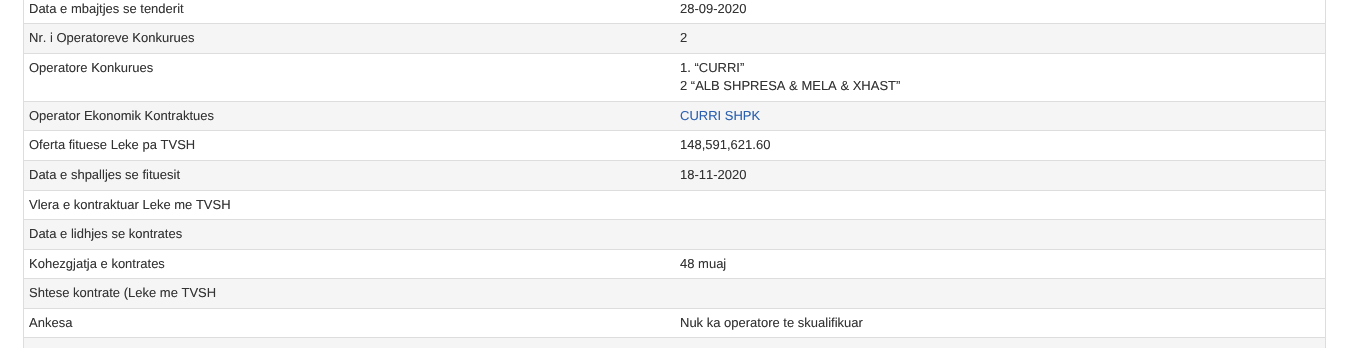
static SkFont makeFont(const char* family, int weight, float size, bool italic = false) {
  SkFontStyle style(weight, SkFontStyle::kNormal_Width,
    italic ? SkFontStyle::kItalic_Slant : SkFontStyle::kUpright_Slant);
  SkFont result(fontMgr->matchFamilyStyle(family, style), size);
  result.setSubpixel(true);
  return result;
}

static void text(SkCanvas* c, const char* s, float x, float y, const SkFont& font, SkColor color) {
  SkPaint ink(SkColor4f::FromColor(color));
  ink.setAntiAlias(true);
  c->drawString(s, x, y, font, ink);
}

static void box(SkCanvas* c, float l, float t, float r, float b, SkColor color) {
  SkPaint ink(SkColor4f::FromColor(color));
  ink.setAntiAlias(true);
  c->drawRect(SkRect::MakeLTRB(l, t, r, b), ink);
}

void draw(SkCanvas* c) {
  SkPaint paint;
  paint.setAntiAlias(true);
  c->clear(0xffffffff);
  box(c, 1325, 0, 1326, 348, 0xffdddddd);
  box(c, 23, 0, 24, 348, 0xffdddddd);
  SkFont face1 = makeFont("Liberation Sans", 400, 13);
  text(c, "Data e mbajtjes se tenderit", 29, 13, face1, 0xff333333);
  text(c, "28-09-2020", 680, 13, face1, 0xff333333);
  box(c, 24, 24, 1325, 53, 0xfff5f5f5);
  text(c, "Nr. i Operatoreve Konkurues", 29, 42, face1, 0xff333333);
  box(c, 23, 23, 1326, 24, 0xffdddddd);
  text(c, "2", 680, 42, face1, 0xff333333);
  text(c, "Operatore Konkurues", 29, 72, face1, 0xff333333);
  box(c, 23, 53, 1326, 54, 0xffdddddd);
  text(c, "1. “CURRI”", 680, 72, face1, 0xff333333);
  text(c, "2 “ALB SHPRESA & MELA & XHAST”", 680, 90, face1, 0xff333333);
  box(c, 24, 102, 1325, 130, 0xfff5f5f5);
  text(c, "Operator Ekonomik Kontraktues", 29, 120, face1, 0xff333333);
  box(c, 23, 101, 1326, 102, 0xffdddddd);
  text(c, "CURRI SHPK", 680, 120, face1, 0xff2b60b0);
  text(c, "Oferta fituese Leke pa TVSH", 29, 149, face1, 0xff333333);
  box(c, 23, 130, 1326, 131, 0xffdddddd);
  text(c, "148,591,621.60", 680, 149, face1, 0xff333333);
  box(c, 24, 161, 1325, 190, 0xfff5f5f5);
  text(c, "Data e shpalljes se fituesit", 29, 179, face1, 0xff333333);
  box(c, 23, 160, 1326, 161, 0xffdddddd);
  text(c, "18-11-2020", 680, 179, face1, 0xff333333);
  box(c, 23, 190, 1326, 191, 0xffdddddd);
  text(c, "Vlera e kontraktuar Leke me TVSH", 29, 209, face1, 0xff333333);
  box(c, 23, 219, 1326, 220, 0xffdddddd);
  box(c, 24, 220, 1325, 249, 0xfff5f5f5);
  text(c, "Data e lidhjes se kontrates", 29, 238, face1, 0xff333333);
  text(c, "Kohezgjatja e kontrates", 29, 268, face1, 0xff333333);
  box(c, 23, 249, 1326, 250, 0xffdddddd);
  text(c, "48 muaj", 680, 268, face1, 0xff333333);
  box(c, 23, 278, 1326, 279, 0xffdddddd);
  box(c, 24, 279, 1325, 308, 0xfff5f5f5);
  text(c, "Shtese kontrate (Leke me TVSH", 29, 297, face1, 0xff333333);
  text(c, "Ankesa", 29, 327, face1, 0xff333333);
  box(c, 23, 308, 1326, 309, 0xffdddddd);
  text(c, "Nuk ka operatore te skualifikuar", 680, 327, face1, 0xff333333);
  box(c, 23, 337, 1326, 338, 0xffdddddd);
  box(c, 24, 338, 1325, 348, 0xfff5f5f5);
}
